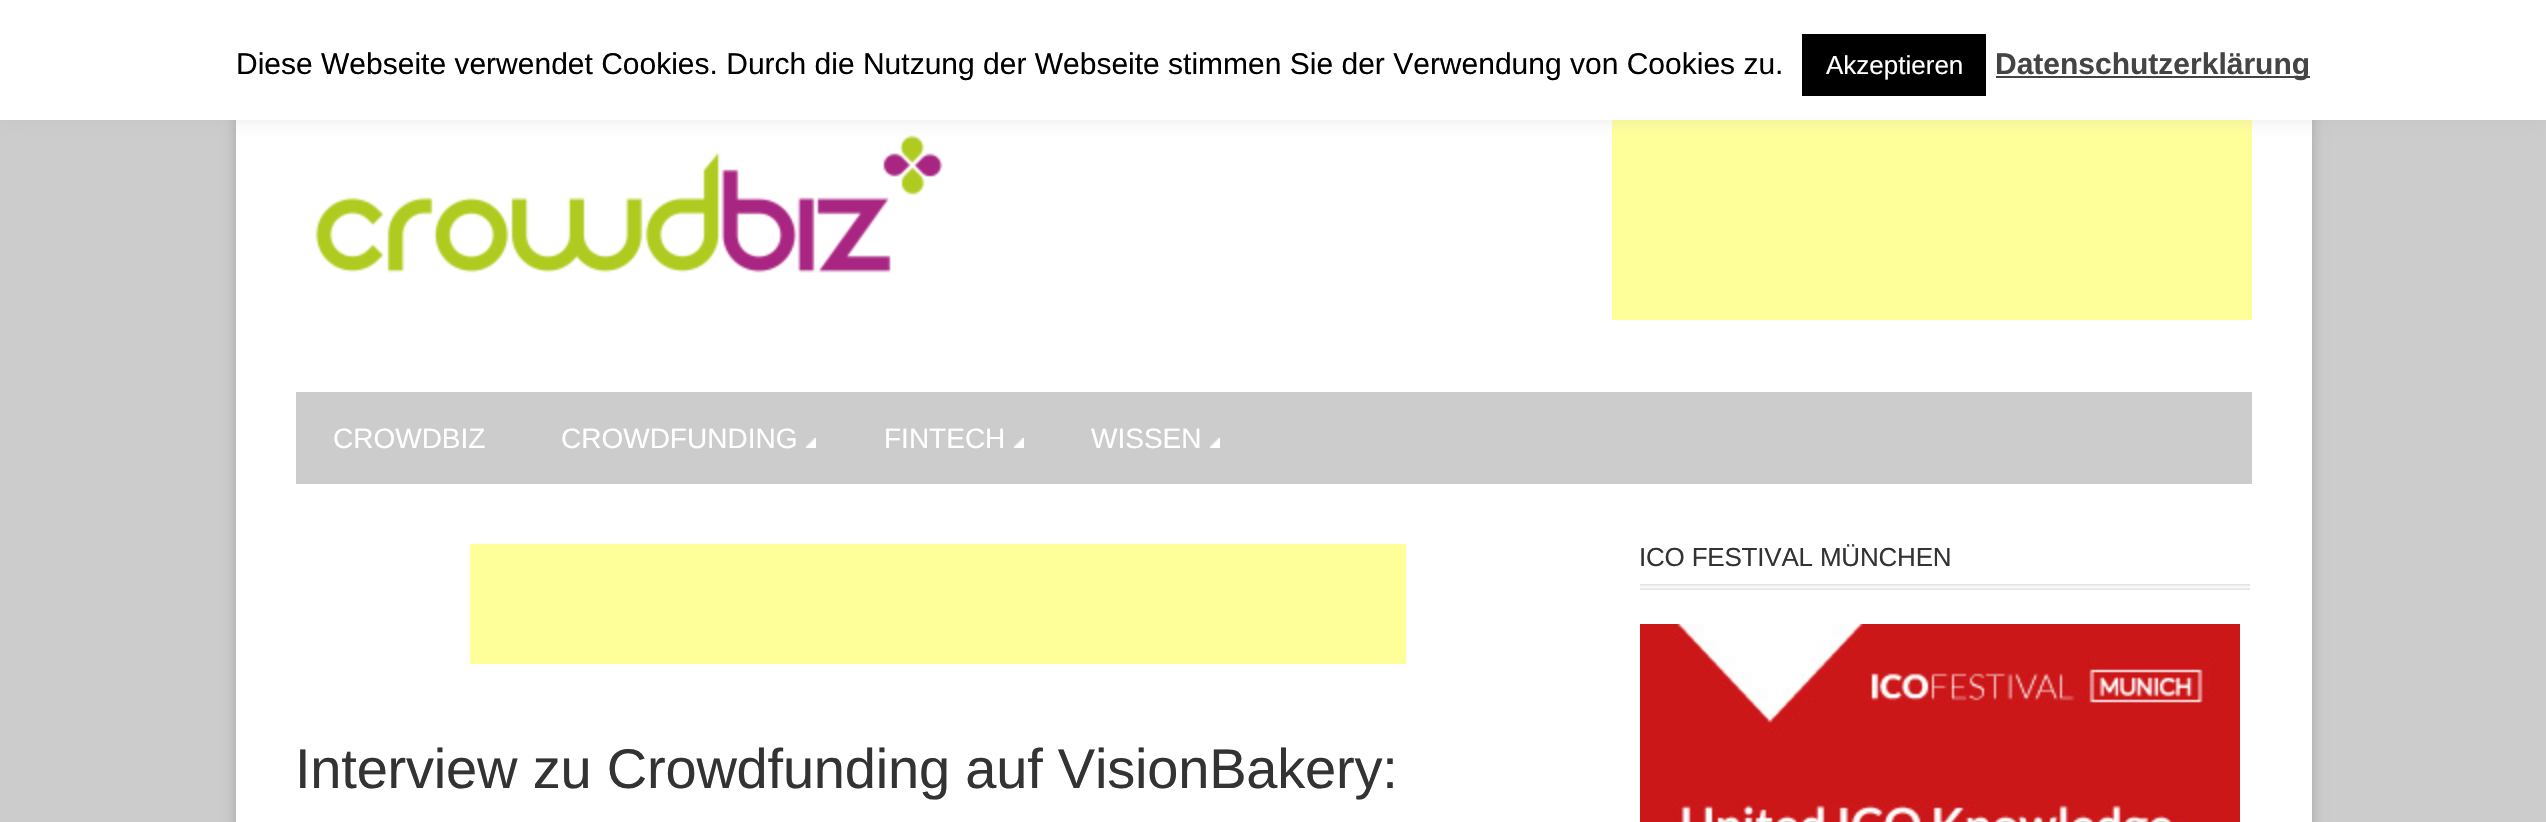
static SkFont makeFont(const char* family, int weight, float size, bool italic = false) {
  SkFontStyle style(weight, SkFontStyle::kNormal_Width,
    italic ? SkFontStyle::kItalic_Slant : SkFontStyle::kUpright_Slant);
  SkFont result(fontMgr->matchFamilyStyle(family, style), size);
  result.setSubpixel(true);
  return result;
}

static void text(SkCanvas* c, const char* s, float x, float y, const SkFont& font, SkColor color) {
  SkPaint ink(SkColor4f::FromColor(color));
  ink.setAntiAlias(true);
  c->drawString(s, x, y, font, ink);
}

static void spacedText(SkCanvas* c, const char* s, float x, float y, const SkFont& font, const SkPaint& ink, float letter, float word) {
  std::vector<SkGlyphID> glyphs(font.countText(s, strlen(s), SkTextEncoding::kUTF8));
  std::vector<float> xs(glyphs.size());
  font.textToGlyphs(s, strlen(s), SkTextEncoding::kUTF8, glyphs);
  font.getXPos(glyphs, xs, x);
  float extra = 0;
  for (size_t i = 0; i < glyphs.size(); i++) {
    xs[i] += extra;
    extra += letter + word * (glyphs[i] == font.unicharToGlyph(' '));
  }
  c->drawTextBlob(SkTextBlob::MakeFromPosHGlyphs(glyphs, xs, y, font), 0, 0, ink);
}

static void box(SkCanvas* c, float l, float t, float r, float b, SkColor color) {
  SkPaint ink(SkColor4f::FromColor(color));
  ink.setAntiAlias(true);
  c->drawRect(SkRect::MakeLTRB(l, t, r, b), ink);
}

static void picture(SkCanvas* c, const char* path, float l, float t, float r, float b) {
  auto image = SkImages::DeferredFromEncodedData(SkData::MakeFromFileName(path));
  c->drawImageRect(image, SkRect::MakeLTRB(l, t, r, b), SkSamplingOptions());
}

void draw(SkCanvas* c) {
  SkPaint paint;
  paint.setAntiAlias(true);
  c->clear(0xffcccccc);
  paint.setColor(0x33000000);
  paint.setMaskFilter(SkMaskFilter::MakeBlur(kNormal_SkBlurStyle, 6));
  c->drawRect(SkRect::MakeLTRB(236, 0, 2312, 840), paint);
  paint.setMaskFilter(nullptr);
  box(c, 236, 120, 2312, 822, 0xffffffff);
  picture(c, "img_01.png", 315, 135, 943, 273);
  box(c, 1612, 120, 2252, 320, 0xffffff99);
  paint.setColor(0x4dacabab);
  paint.setMaskFilter(SkMaskFilter::MakeBlur(kNormal_SkBlurStyle, 10));
  c->drawRect(SkRect::MakeLTRB(0, -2, 2546, 118), paint);
  paint.setMaskFilter(nullptr);
  box(c, 0, 0, 2546, 120, 0xffffffff);
  SkFont face1 = makeFont("Liberation Sans", 400, 30);
  text(c, "Diese Webseite verwendet Cookies. Durch die Nutzung der Webseite stimmen Sie der Verwendung von Cookies zu.", 236, 74, face1, 0xff000000);
  box(c, 1802, 34, 1986, 96, 0xff000000);
  SkFont face2 = makeFont("Liberation Sans", 400, 26);
  text(c, "Akzeptieren", 1826, 74, face2, 0xffffffff);
  box(c, 1996, 76, 2310, 78, 0xff444444);
  SkFont face3 = makeFont("Liberation Sans", 700, 30);
  text(c, "Datenschutzerklärung", 1995, 74, face3, 0xff444444);
  box(c, 296, 392, 2252, 484, 0xffcccccc);
  SkFont face4 = makeFont("Liberation Sans", 400, 28);
  text(c, "CROWDBIZ", 333, 448, face4, 0xffffffff);
  text(c, "CROWDFUNDING", 561, 448, face4, 0xffffffff);
  picture(c, "img_02.png", 806, 438, 816, 448);
  text(c, "FINTECH", 884, 448, face4, 0xffffffff);
  picture(c, "img_02.png", 1014, 438, 1024, 448);
  text(c, "WISSEN", 1091, 448, face4, 0xffffffff);
  picture(c, "img_02.png", 1210, 438, 1220, 448);
  picture(c, "img_03.png", 1640, 584, 2250, 590);
  paint.setColor(0xff333333);
  spacedText(c, "ICO FESTIVAL MÜNCHEN", 1639, 566, face2, paint, -0.2f, 0);
  picture(c, "img_04.png", 1640, 624, 2240, 822);
  box(c, 470, 544, 1406, 664, 0xffffff99);
  SkFont face5 = makeFont("Liberation Sans", 400, 56);
  spacedText(c, "Interview zu Crowdfunding auf VisionBakery:", 295, 788, face5, paint, -0.2f, 0);
}
